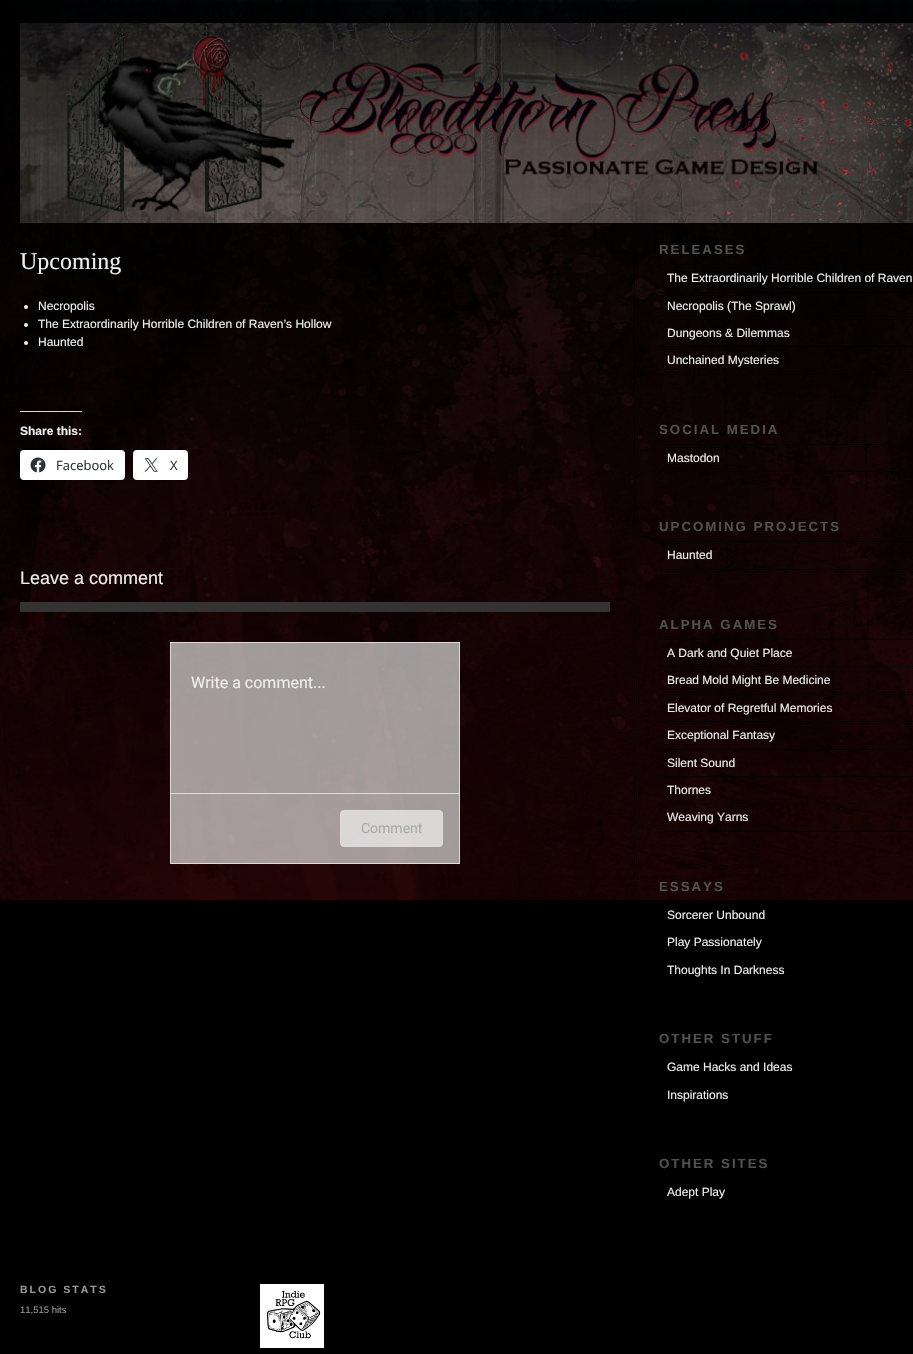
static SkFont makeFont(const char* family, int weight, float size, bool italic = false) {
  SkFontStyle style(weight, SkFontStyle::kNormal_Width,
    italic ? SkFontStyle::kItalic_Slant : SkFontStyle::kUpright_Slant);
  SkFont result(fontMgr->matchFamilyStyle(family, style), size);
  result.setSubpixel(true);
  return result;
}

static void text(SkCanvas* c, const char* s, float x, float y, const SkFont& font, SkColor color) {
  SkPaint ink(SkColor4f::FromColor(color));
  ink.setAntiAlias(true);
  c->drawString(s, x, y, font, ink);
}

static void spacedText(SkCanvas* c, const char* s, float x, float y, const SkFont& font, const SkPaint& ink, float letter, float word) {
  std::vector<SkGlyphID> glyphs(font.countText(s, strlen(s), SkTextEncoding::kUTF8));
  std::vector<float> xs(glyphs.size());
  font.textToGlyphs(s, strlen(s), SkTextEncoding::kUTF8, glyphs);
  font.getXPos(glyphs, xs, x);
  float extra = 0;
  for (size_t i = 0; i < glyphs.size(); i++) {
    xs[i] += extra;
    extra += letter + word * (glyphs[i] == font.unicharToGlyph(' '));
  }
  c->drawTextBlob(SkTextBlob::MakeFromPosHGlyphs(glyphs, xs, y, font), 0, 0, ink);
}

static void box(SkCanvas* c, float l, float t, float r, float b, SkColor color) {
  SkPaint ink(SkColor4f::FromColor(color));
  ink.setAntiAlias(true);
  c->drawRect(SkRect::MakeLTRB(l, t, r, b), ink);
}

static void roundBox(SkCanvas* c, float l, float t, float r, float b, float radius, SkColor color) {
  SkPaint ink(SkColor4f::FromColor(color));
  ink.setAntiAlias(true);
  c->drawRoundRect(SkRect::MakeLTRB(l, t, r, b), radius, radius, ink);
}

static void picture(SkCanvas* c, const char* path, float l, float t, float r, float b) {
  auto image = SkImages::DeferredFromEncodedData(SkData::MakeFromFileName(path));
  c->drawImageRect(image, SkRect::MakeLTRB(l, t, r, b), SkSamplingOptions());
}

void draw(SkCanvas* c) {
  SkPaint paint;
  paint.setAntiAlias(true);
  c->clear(0xff000000);
  picture(c, "img_01.png", 0, 0, 913, 900);
  picture(c, "img_02.png", 20, 23, 913, 223);
  box(c, 634, 243, 635, 877, 0xff000000);
  SkFont face1 = makeFont("Liberation Serif", 400, 24);
  text(c, "Upcoming", 20, 269, face1, 0xffeeeeee);
  paint.setColor(0xffeeeeee);
  c->drawCircle(26, 307, 2, paint);
  SkFont face2 = makeFont("Liberation Sans", 400, 12);
  text(c, "Necropolis", 38, 310, face2, 0xffeeeeee);
  c->drawCircle(26, 325, 2, paint);
  text(c, "The Extraordinarily Horrible Children of Raven’s Hollow", 38, 328, face2, 0xffeeeeee);
  c->drawCircle(26, 343, 2, paint);
  text(c, "Haunted", 38, 346, face2, 0xffeeeeee);
  box(c, 20, 411, 82, 412, 0xffdcdcde);
  SkFont face3 = makeFont("Liberation Sans", 700, 12);
  text(c, "Share this:", 20, 435, face3, 0xffeeeeee);
  c->save();
  c->clipRect(SkRect::MakeLTRB(20, 243, 610, 877));
  paint.setStyle(SkPaint::kStroke_Style);
  paint.setStrokeWidth(1);
  paint.setColor(0x1f000000);
  c->drawRoundRect(SkRect::MakeLTRB(19.5f, 449.5f, 125.5f, 480.5f), 4.5f, 4.5f, paint);
  c->restore();
  roundBox(c, 20, 450, 125, 480, 4, 0xffffffff);
  picture(c, "img_03.png", 30, 457, 46, 473);
  SkFont face4 = makeFont("Open Sans", 400, 13);
  text(c, "Facebook", 56, 470, face4, 0xff2c3338);
  c->drawRoundRect(SkRect::MakeLTRB(132.5f, 449.5f, 188.5f, 480.5f), 4.5f, 4.5f, paint);
  roundBox(c, 133, 450, 188, 480, 4, 0xffffffff);
  picture(c, "img_04.png", 144, 458, 158, 472);
  text(c, "X", 170, 470, face4, 0xff2c3338);
  SkFont face5 = makeFont("Liberation Sans", 400, 18);
  text(c, "Leave a comment", 20, 584, face5, 0xffeeeeee);
  box(c, 20, 602, 610, 612, 0xff333333);
  paint.setStyle(SkPaint::kFill_Style);
  paint.setColor(0x99ffffff);
  c->drawRect(SkRect::MakeLTRB(170.5f, 642.5f, 459.5f, 863.5f), paint);
  paint.setStyle(SkPaint::kStroke_Style);
  paint.setColor(0xffdcdcde);
  c->drawRect(SkRect::MakeLTRB(170.5f, 642.5f, 459.5f, 863.5f), paint);
  SkFont face6 = makeFont("Roboto", 400, 16);
  text(c, "Write a comment...", 191, 688, face6, 0xffeeeeee);
  box(c, 171, 793, 459, 794, 0xffdcdcde);
  paint.setStyle(SkPaint::kFill_Style);
  paint.setColor(0x99ffffff);
  c->drawRoundRect(SkRect::MakeLTRB(340.5f, 810.5f, 442.5f, 846.5f), 3.5f, 3.5f, paint);
  paint.setStyle(SkPaint::kStroke_Style);
  paint.setColor(0xffdcdcde);
  c->drawRoundRect(SkRect::MakeLTRB(340.5f, 810.5f, 442.5f, 846.5f), 3.5f, 3.5f, paint);
  SkFont face7 = makeFont("Roboto", 400, 14);
  text(c, "Comment", 361, 833, face7, 0xffa7aaad);
  box(c, 659, 264, 913, 265, 0xff000000);
  SkFont face8 = makeFont("Liberation Sans", 700, 13.25f);
  paint.setStyle(SkPaint::kFill_Style);
  paint.setColor(0xff515151);
  spacedText(c, "RELEASES", 659, 254, face8, paint, 2, 0);
  box(c, 659, 292, 913, 293, 0xff000000);
  text(c, "The Extraordinarily Horrible Children of Raven", 667, 282, face2, 0xffeeeeee);
  box(c, 659, 319, 913, 320, 0xff000000);
  text(c, "Necropolis (The Sprawl)", 667, 310, face2, 0xffeeeeee);
  box(c, 659, 346, 913, 347, 0xff000000);
  text(c, "Dungeons & Dilemmas", 667, 337, face2, 0xffeeeeee);
  box(c, 659, 374, 913, 375, 0xff000000);
  text(c, "Unchained Mysteries", 667, 364, face2, 0xffeeeeee);
  box(c, 659, 444, 913, 445, 0xff000000);
  spacedText(c, "SOCIAL MEDIA", 659, 434, face8, paint, 2, 0);
  box(c, 659, 471, 913, 472, 0xff000000);
  text(c, "Mastodon", 667, 462, face2, 0xffeeeeee);
  box(c, 659, 541, 913, 542, 0xff000000);
  spacedText(c, "UPCOMING PROJECTS", 659, 531, face8, paint, 2, 0);
  box(c, 659, 569, 913, 570, 0xff000000);
  text(c, "Haunted", 667, 559, face2, 0xffeeeeee);
  box(c, 659, 639, 913, 640, 0xff000000);
  spacedText(c, "ALPHA GAMES", 659, 629, face8, paint, 2, 0);
  box(c, 659, 666, 913, 667, 0xff000000);
  text(c, "A Dark and Quiet Place", 667, 657, face2, 0xffeeeeee);
  box(c, 659, 694, 913, 695, 0xff000000);
  text(c, "Bread Mold Might Be Medicine", 667, 684, face2, 0xffeeeeee);
  box(c, 659, 721, 913, 722, 0xff000000);
  text(c, "Elevator of Regretful Memories", 667, 712, face2, 0xffeeeeee);
  box(c, 659, 749, 913, 750, 0xff000000);
  text(c, "Exceptional Fantasy", 667, 739, face2, 0xffeeeeee);
  box(c, 659, 776, 913, 777, 0xff000000);
  text(c, "Silent Sound", 667, 767, face2, 0xffeeeeee);
  box(c, 659, 803, 913, 804, 0xff000000);
  text(c, "Thornes", 667, 794, face2, 0xffeeeeee);
  box(c, 659, 831, 913, 832, 0xff000000);
  text(c, "Weaving Yarns", 667, 821, face2, 0xffeeeeee);
  spacedText(c, "ESSAYS", 659, 891, face8, paint, 2, 0);
  text(c, "Sorcerer Unbound", 667, 919, face2, 0xffeeeeee);
  text(c, "Play Passionately", 667, 946, face2, 0xffeeeeee);
  text(c, "Thoughts In Darkness", 667, 974, face2, 0xffeeeeee);
  spacedText(c, "OTHER STUFF", 659, 1043, face8, paint, 2, 0);
  text(c, "Game Hacks and Ideas", 667, 1071, face2, 0xffeeeeee);
  text(c, "Inspirations", 667, 1099, face2, 0xffeeeeee);
  spacedText(c, "OTHER SITES", 659, 1168, face8, paint, 2, 0);
  text(c, "Adept Play", 667, 1196, face2, 0xffeeeeee);
  SkFont face9 = makeFont("Liberation Sans", 700, 10.5f);
  paint.setColor(0xff999999);
  spacedText(c, "BLOG STATS", 20, 1293, face9, paint, 2, 0);
  SkFont face10 = makeFont("Liberation Sans", 400, 9.5f);
  text(c, "11,515 hits", 20, 1313, face10, 0xff999999);
  picture(c, "img_05.png", 260, 1284, 324, 1348);
}
